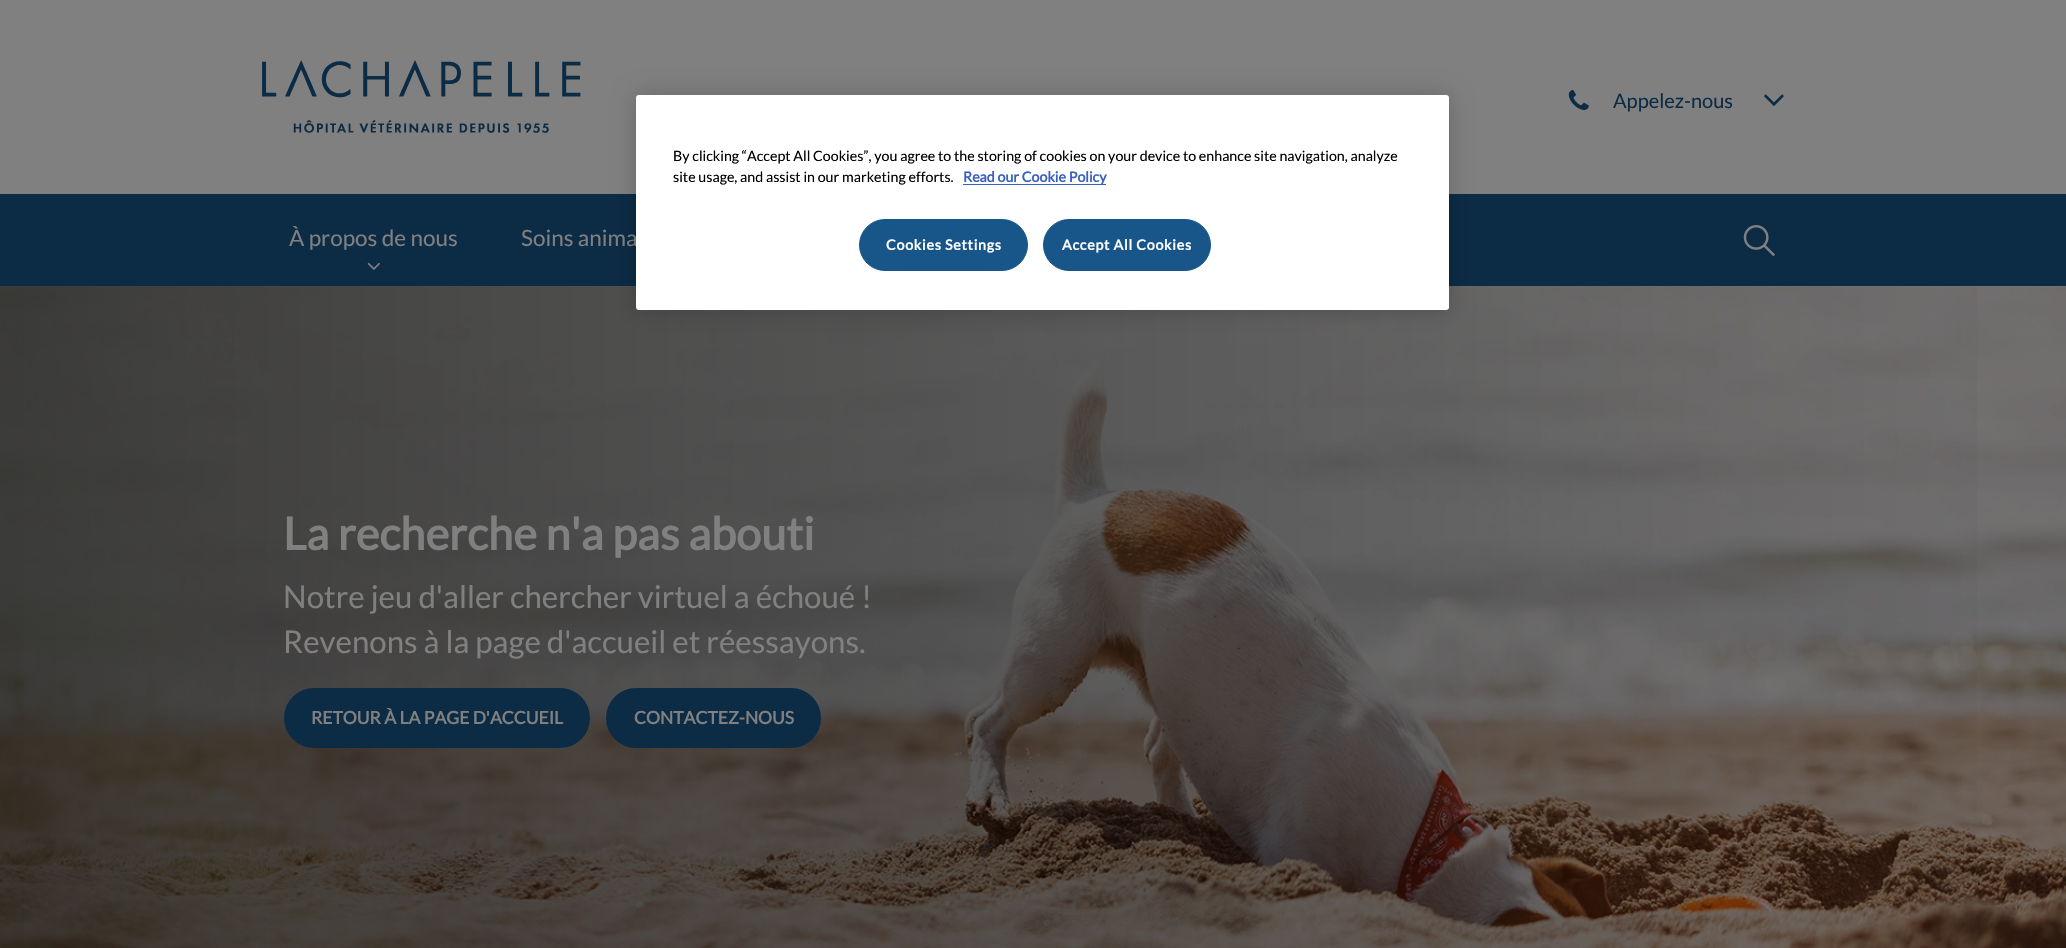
static SkFont makeFont(const char* family, int weight, float size, bool italic = false) {
  SkFontStyle style(weight, SkFontStyle::kNormal_Width,
    italic ? SkFontStyle::kItalic_Slant : SkFontStyle::kUpright_Slant);
  SkFont result(fontMgr->matchFamilyStyle(family, style), size);
  result.setSubpixel(true);
  return result;
}

static void text(SkCanvas* c, const char* s, float x, float y, const SkFont& font, SkColor color) {
  SkPaint ink(SkColor4f::FromColor(color));
  ink.setAntiAlias(true);
  c->drawString(s, x, y, font, ink);
}

static void spacedText(SkCanvas* c, const char* s, float x, float y, const SkFont& font, const SkPaint& ink, float letter, float word) {
  std::vector<SkGlyphID> glyphs(font.countText(s, strlen(s), SkTextEncoding::kUTF8));
  std::vector<float> xs(glyphs.size());
  font.textToGlyphs(s, strlen(s), SkTextEncoding::kUTF8, glyphs);
  font.getXPos(glyphs, xs, x);
  float extra = 0;
  for (size_t i = 0; i < glyphs.size(); i++) {
    xs[i] += extra;
    extra += letter + word * (glyphs[i] == font.unicharToGlyph(' '));
  }
  c->drawTextBlob(SkTextBlob::MakeFromPosHGlyphs(glyphs, xs, y, font), 0, 0, ink);
}

static void box(SkCanvas* c, float l, float t, float r, float b, SkColor color) {
  SkPaint ink(SkColor4f::FromColor(color));
  ink.setAntiAlias(true);
  c->drawRect(SkRect::MakeLTRB(l, t, r, b), ink);
}

static void roundBox(SkCanvas* c, float l, float t, float r, float b, float radius, SkColor color) {
  SkPaint ink(SkColor4f::FromColor(color));
  ink.setAntiAlias(true);
  c->drawRoundRect(SkRect::MakeLTRB(l, t, r, b), radius, radius, ink);
}

static void picture(SkCanvas* c, const char* path, float l, float t, float r, float b) {
  auto image = SkImages::DeferredFromEncodedData(SkData::MakeFromFileName(path));
  c->drawImageRect(image, SkRect::MakeLTRB(l, t, r, b), SkSamplingOptions());
}

void draw(SkCanvas* c) {
  SkPaint paint;
  paint.setAntiAlias(true);
  c->clear(0xff808080);
  picture(c, "img_01.png", 262, 60, 581, 133);
  picture(c, "img_02.png", 1568, 90, 1589, 110);
  SkFont face1 = makeFont("Lato", 400, 20);
  text(c, "Appelez-nous", 1613, 108, face1, 0xff0c2b45);
  picture(c, "img_03.png", 1764, 94, 1784, 106);
  box(c, 0, 194, 2066, 286, 0xff0c2b45);
  SkFont face2 = makeFont("Lato", 400, 22.5f);
  text(c, "À propos de nous", 289, 246, face2, 0xff808080);
  picture(c, "img_04.png", 367, 262, 380, 270);
  text(c, "Soins anima", 521, 246, face2, 0xff808080);
  picture(c, "img_05.png", 1743, 225, 1775, 257);
  picture(c, "img_06.png", 0, 286, 2066, 948);
  {
    const SkColor colors[] = {0x80000000, 0x00000000};
    const float stops[] = {0, 1};
    const SkPoint ends[] = {{0, 624}, {2066, 624}};
    paint.setShader(SkGradientShader::MakeLinear(ends, colors, stops, 2, SkTileMode::kClamp));
    paint.setAlpha(255);
  }
  c->drawRect(SkRect::MakeLTRB(0, 286, 1977, 948), paint);
  SkFont face3 = makeFont("Lato", 700, 45);
  text(c, "La recherche n'a pas abouti", 283, 550, face3, 0xff808080);
  SkFont face4 = makeFont("Lato", 400, 31.25f);
  text(c, "Notre jeu d'aller chercher virtuel a échoué !", 283, 608, face4, 0xff808080);
  text(c, "Revenons à la page d'accueil et réessayons.", 283, 653, face4, 0xff808080);
  paint.setShader(nullptr);
  paint.setColor(0xff0c2b45);
  c->drawRoundRect(SkRect::MakeLTRB(285.5f, 689.5f, 588.5f, 746.5f), 28.5f, 28.5f, paint);
  paint.setStyle(SkPaint::kStroke_Style);
  paint.setStrokeWidth(3);
  c->drawRoundRect(SkRect::MakeLTRB(285.5f, 689.5f, 588.5f, 746.5f), 28.5f, 28.5f, paint);
  SkFont face5 = makeFont("Lato", 700, 17.5f);
  text(c, "RETOUR À LA PAGE D'ACCUEIL", 311, 724, face5, 0xff808080);
  paint.setStyle(SkPaint::kFill_Style);
  c->drawRoundRect(SkRect::MakeLTRB(607.5f, 689.5f, 819.5f, 746.5f), 28.5f, 28.5f, paint);
  paint.setStyle(SkPaint::kStroke_Style);
  c->drawRoundRect(SkRect::MakeLTRB(607.5f, 689.5f, 819.5f, 746.5f), 28.5f, 28.5f, paint);
  text(c, "CONTACTEZ-NOUS", 634, 724, face5, 0xff808080);
  paint.setStyle(SkPaint::kFill_Style);
  paint.setColor(0x33000000);
  paint.setMaskFilter(SkMaskFilter::MakeBlur(kNormal_SkBlurStyle, 11));
  c->drawRoundRect(SkRect::MakeLTRB(636, 95, 1449, 310), 3, 3, paint);
  paint.setMaskFilter(nullptr);
  roundBox(c, 636, 95, 1449, 310, 3, 0xffffffff);
  SkFont face6 = makeFont("Lato", 400, 14.23f);
  text(c, "By clicking “Accept All Cookies”, you agree to the storing of cookies on your device to enhance site navigation, analyze", 673, 161, face6, 0xff000000);
  text(c, "site usage, and assist in our marketing efforts.", 673, 182, face6, 0xff000000);
  box(c, 963, 184, 1106, 185, 0xff3860be);
  SkFont face7 = makeFont("Lato", 700, 14.23f);
  text(c, "Read our Cookie Policy", 963, 182, face7, 0xff3860be);
  paint.setColor(0xff185689);
  c->drawRoundRect(SkRect::MakeLTRB(859.5f, 219.5f, 1027.5f, 270.5f), 25.5f, 25.5f, paint);
  paint.setStyle(SkPaint::kStroke_Style);
  paint.setStrokeWidth(1);
  c->drawRoundRect(SkRect::MakeLTRB(859.5f, 219.5f, 1027.5f, 270.5f), 25.5f, 25.5f, paint);
  paint.setStyle(SkPaint::kFill_Style);
  paint.setColor(0xffffffff);
  spacedText(c, "Cookies Settings", 886, 250, face7, paint, 0.75f, 0);
  paint.setColor(0xff185689);
  c->drawRoundRect(SkRect::MakeLTRB(1043.5f, 219.5f, 1210.5f, 270.5f), 25.5f, 25.5f, paint);
  paint.setStyle(SkPaint::kStroke_Style);
  c->drawRoundRect(SkRect::MakeLTRB(1043.5f, 219.5f, 1210.5f, 270.5f), 25.5f, 25.5f, paint);
  paint.setStyle(SkPaint::kFill_Style);
  paint.setColor(0xffffffff);
  spacedText(c, "Accept All Cookies", 1062, 250, face7, paint, 0.75f, 0);
}
